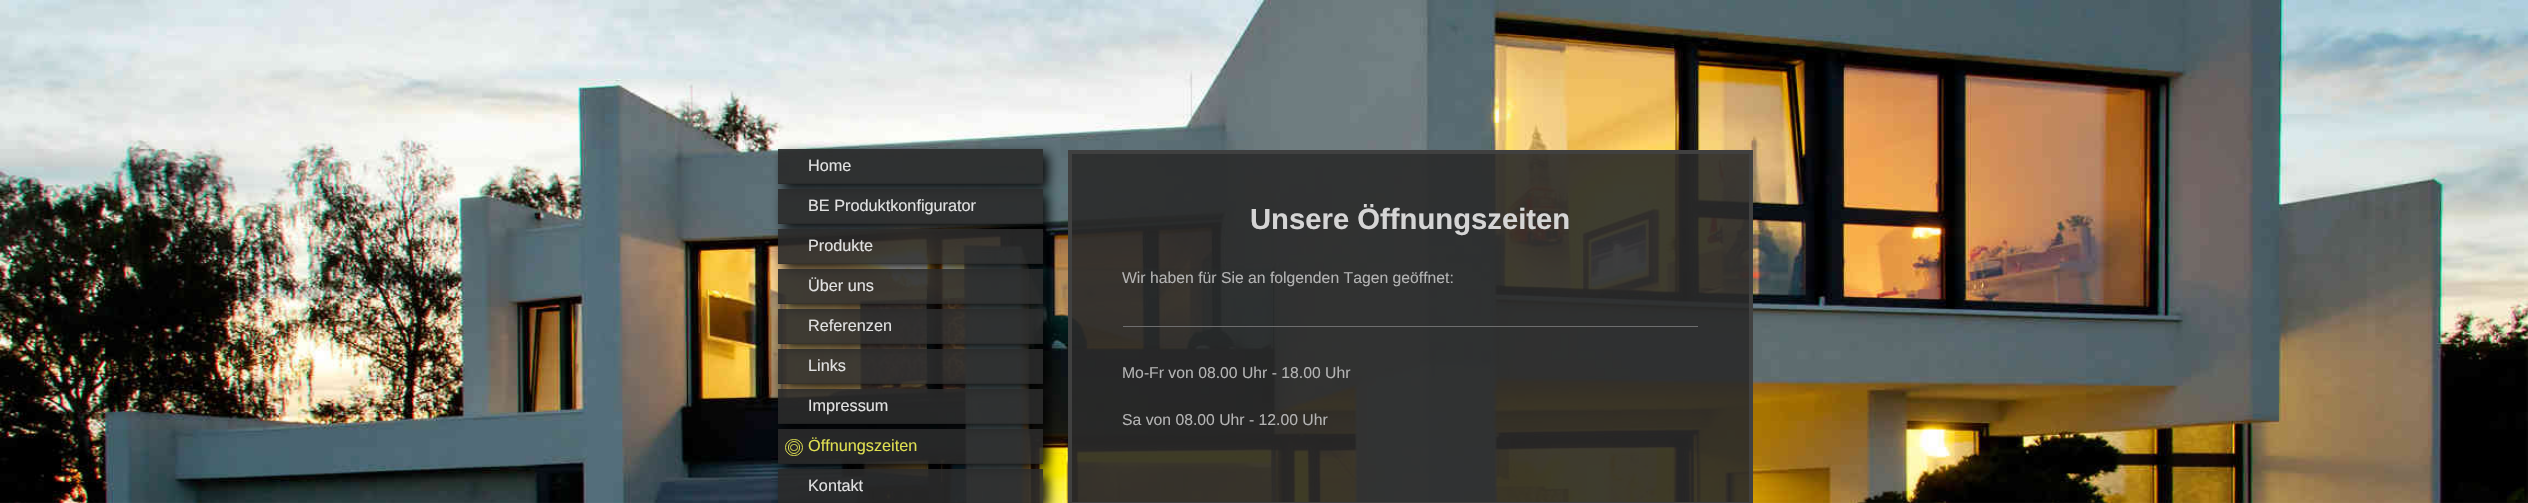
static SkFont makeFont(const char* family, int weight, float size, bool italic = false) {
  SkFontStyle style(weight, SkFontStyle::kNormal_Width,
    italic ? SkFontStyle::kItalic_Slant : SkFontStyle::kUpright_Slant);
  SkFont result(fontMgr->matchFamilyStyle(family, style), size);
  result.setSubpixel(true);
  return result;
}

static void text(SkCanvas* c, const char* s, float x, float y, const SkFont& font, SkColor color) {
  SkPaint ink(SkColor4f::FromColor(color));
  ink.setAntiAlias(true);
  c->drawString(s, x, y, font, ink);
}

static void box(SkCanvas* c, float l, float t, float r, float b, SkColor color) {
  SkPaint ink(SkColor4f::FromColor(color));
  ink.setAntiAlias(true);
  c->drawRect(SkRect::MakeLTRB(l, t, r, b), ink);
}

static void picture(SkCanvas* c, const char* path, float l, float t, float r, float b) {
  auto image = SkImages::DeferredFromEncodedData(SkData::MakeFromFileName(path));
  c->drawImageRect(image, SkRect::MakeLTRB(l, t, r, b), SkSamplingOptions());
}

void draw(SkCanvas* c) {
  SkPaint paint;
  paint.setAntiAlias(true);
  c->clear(0xffffffff);
  picture(c, "img_01.png", 0, 0, 2528, 503);
  c->save();
  c->clipPath(SkPathBuilder(SkPathFillType::kEvenOdd).moveTo(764, 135).lineTo(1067, 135).lineTo(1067, 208).lineTo(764, 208).close().moveTo(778, 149).lineTo(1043, 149).lineTo(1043, 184).lineTo(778, 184).close().detach(), true);
  paint.setColor(0xe6000000);
  paint.setMaskFilter(SkMaskFilter::MakeBlur(kNormal_SkBlurStyle, 6));
  c->drawRect(SkRect::MakeLTRB(783, 154, 1048, 189), paint);
  paint.setMaskFilter(nullptr);
  c->restore();
  box(c, 778, 149, 1043, 184, 0xe6292929);
  box(c, 778, 183, 1043, 184, 0x1a000000);
  SkFont face1 = makeFont("Liberation Sans", 400, 16.25f);
  text(c, "Home", 808, 171, face1, 0xffe1e1e1);
  c->save();
  c->clipPath(SkPathBuilder(SkPathFillType::kEvenOdd).moveTo(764, 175).lineTo(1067, 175).lineTo(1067, 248).lineTo(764, 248).close().moveTo(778, 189).lineTo(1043, 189).lineTo(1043, 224).lineTo(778, 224).close().detach(), true);
  paint.setMaskFilter(SkMaskFilter::MakeBlur(kNormal_SkBlurStyle, 6));
  c->drawRect(SkRect::MakeLTRB(783, 194, 1048, 229), paint);
  paint.setMaskFilter(nullptr);
  c->restore();
  box(c, 778, 189, 1043, 224, 0xe6292929);
  box(c, 778, 223, 1043, 224, 0x1a000000);
  text(c, "BE Produktkonfigurator", 808, 211, face1, 0xffe1e1e1);
  c->save();
  c->clipPath(SkPathBuilder(SkPathFillType::kEvenOdd).moveTo(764, 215).lineTo(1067, 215).lineTo(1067, 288).lineTo(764, 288).close().moveTo(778, 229).lineTo(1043, 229).lineTo(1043, 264).lineTo(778, 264).close().detach(), true);
  paint.setMaskFilter(SkMaskFilter::MakeBlur(kNormal_SkBlurStyle, 6));
  c->drawRect(SkRect::MakeLTRB(783, 234, 1048, 269), paint);
  paint.setMaskFilter(nullptr);
  c->restore();
  box(c, 778, 229, 1043, 264, 0xe6292929);
  box(c, 778, 263, 1043, 264, 0x1a000000);
  text(c, "Produkte", 808, 251, face1, 0xffe1e1e1);
  c->save();
  c->clipPath(SkPathBuilder(SkPathFillType::kEvenOdd).moveTo(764, 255).lineTo(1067, 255).lineTo(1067, 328).lineTo(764, 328).close().moveTo(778, 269).lineTo(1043, 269).lineTo(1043, 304).lineTo(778, 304).close().detach(), true);
  paint.setMaskFilter(SkMaskFilter::MakeBlur(kNormal_SkBlurStyle, 6));
  c->drawRect(SkRect::MakeLTRB(783, 274, 1048, 309), paint);
  paint.setMaskFilter(nullptr);
  c->restore();
  box(c, 778, 269, 1043, 304, 0xe6292929);
  box(c, 778, 303, 1043, 304, 0x1a000000);
  text(c, "Über uns", 808, 291, face1, 0xffe1e1e1);
  c->save();
  c->clipPath(SkPathBuilder(SkPathFillType::kEvenOdd).moveTo(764, 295).lineTo(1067, 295).lineTo(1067, 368).lineTo(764, 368).close().moveTo(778, 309).lineTo(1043, 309).lineTo(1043, 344).lineTo(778, 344).close().detach(), true);
  paint.setMaskFilter(SkMaskFilter::MakeBlur(kNormal_SkBlurStyle, 6));
  c->drawRect(SkRect::MakeLTRB(783, 314, 1048, 349), paint);
  paint.setMaskFilter(nullptr);
  c->restore();
  box(c, 778, 309, 1043, 344, 0xe6292929);
  box(c, 778, 343, 1043, 344, 0x1a000000);
  text(c, "Referenzen", 808, 331, face1, 0xffe1e1e1);
  c->save();
  c->clipPath(SkPathBuilder(SkPathFillType::kEvenOdd).moveTo(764, 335).lineTo(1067, 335).lineTo(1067, 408).lineTo(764, 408).close().moveTo(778, 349).lineTo(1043, 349).lineTo(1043, 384).lineTo(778, 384).close().detach(), true);
  paint.setMaskFilter(SkMaskFilter::MakeBlur(kNormal_SkBlurStyle, 6));
  c->drawRect(SkRect::MakeLTRB(783, 354, 1048, 389), paint);
  paint.setMaskFilter(nullptr);
  c->restore();
  box(c, 778, 349, 1043, 384, 0xe6292929);
  box(c, 778, 383, 1043, 384, 0x1a000000);
  text(c, "Links", 808, 371, face1, 0xffe1e1e1);
  c->save();
  c->clipPath(SkPathBuilder(SkPathFillType::kEvenOdd).moveTo(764, 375).lineTo(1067, 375).lineTo(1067, 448).lineTo(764, 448).close().moveTo(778, 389).lineTo(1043, 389).lineTo(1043, 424).lineTo(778, 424).close().detach(), true);
  paint.setMaskFilter(SkMaskFilter::MakeBlur(kNormal_SkBlurStyle, 6));
  c->drawRect(SkRect::MakeLTRB(783, 394, 1048, 429), paint);
  paint.setMaskFilter(nullptr);
  c->restore();
  box(c, 778, 389, 1043, 424, 0xe6292929);
  box(c, 778, 423, 1043, 424, 0x1a000000);
  text(c, "Impressum", 808, 411, face1, 0xffe1e1e1);
  c->save();
  c->clipPath(SkPathBuilder(SkPathFillType::kEvenOdd).moveTo(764, 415).lineTo(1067, 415).lineTo(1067, 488).lineTo(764, 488).close().moveTo(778, 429).lineTo(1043, 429).lineTo(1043, 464).lineTo(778, 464).close().detach(), true);
  paint.setMaskFilter(SkMaskFilter::MakeBlur(kNormal_SkBlurStyle, 6));
  c->drawRect(SkRect::MakeLTRB(783, 434, 1048, 469), paint);
  paint.setMaskFilter(nullptr);
  c->restore();
  box(c, 778, 429, 1043, 464, 0xe6292929);
  box(c, 778, 463, 1043, 464, 0x1a000000);
  paint.setStyle(SkPaint::kStroke_Style);
  paint.setStrokeWidth(1);
  paint.setColor(0xffdfdf51);
  c->drawRoundRect(SkRect::MakeLTRB(785.5f, 439.5f, 802.5f, 455.5f), 8, 8, paint);
  c->drawRoundRect(SkRect::MakeLTRB(788.5f, 441.5f, 799.5f, 453.5f), 5.5f, 5.5f, paint);
  text(c, "Öffnungszeiten", 808, 451, face1, 0xffdfdf51);
  c->drawRoundRect(SkRect::MakeLTRB(790.5f, 444.5f, 797.5f, 450.5f), 3, 3, paint);
  c->save();
  c->clipPath(SkPathBuilder(SkPathFillType::kEvenOdd).moveTo(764, 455).lineTo(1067, 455).lineTo(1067, 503).lineTo(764, 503).close().moveTo(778, 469).lineTo(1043, 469).lineTo(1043, 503).lineTo(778, 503).close().detach(), true);
  paint.setStyle(SkPaint::kFill_Style);
  paint.setColor(0xe6000000);
  paint.setMaskFilter(SkMaskFilter::MakeBlur(kNormal_SkBlurStyle, 6));
  c->drawRect(SkRect::MakeLTRB(783, 474, 1048, 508), paint);
  paint.setMaskFilter(nullptr);
  c->restore();
  box(c, 778, 469, 1043, 503, 0xe6292929);
  text(c, "Kontakt", 808, 491, face1, 0xffe1e1e1);
  paint.setColor(0xe6292929);
  c->drawRect(SkRect::MakeLTRB(1070, 152, 1751, 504), paint);
  paint.setStyle(SkPaint::kStroke_Style);
  paint.setStrokeWidth(4);
  paint.setColor(0xff404040);
  c->drawRect(SkRect::MakeLTRB(1070, 152, 1751, 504), paint);
  SkFont face2 = makeFont("Liberation Sans", 700, 29.25f);
  text(c, "Unsere Öffnungszeiten", 1250, 229, face2, 0xffd5d5d5);
  SkFont face3 = makeFont("Liberation Sans", 400, 15.75f);
  text(c, "Wir haben für Sie an folgenden Tagen geöffnet:", 1122, 283, face3, 0xffb3b3b3);
  box(c, 1123, 326, 1698, 327, 0xff6e6e6e);
  text(c, "Mo-Fr von 08.00 Uhr - 18.00 Uhr", 1122, 378, face3, 0xffb3b3b3);
  text(c, "Sa von 08.00 Uhr - 12.00 Uhr", 1122, 425, face3, 0xffb3b3b3);
}
